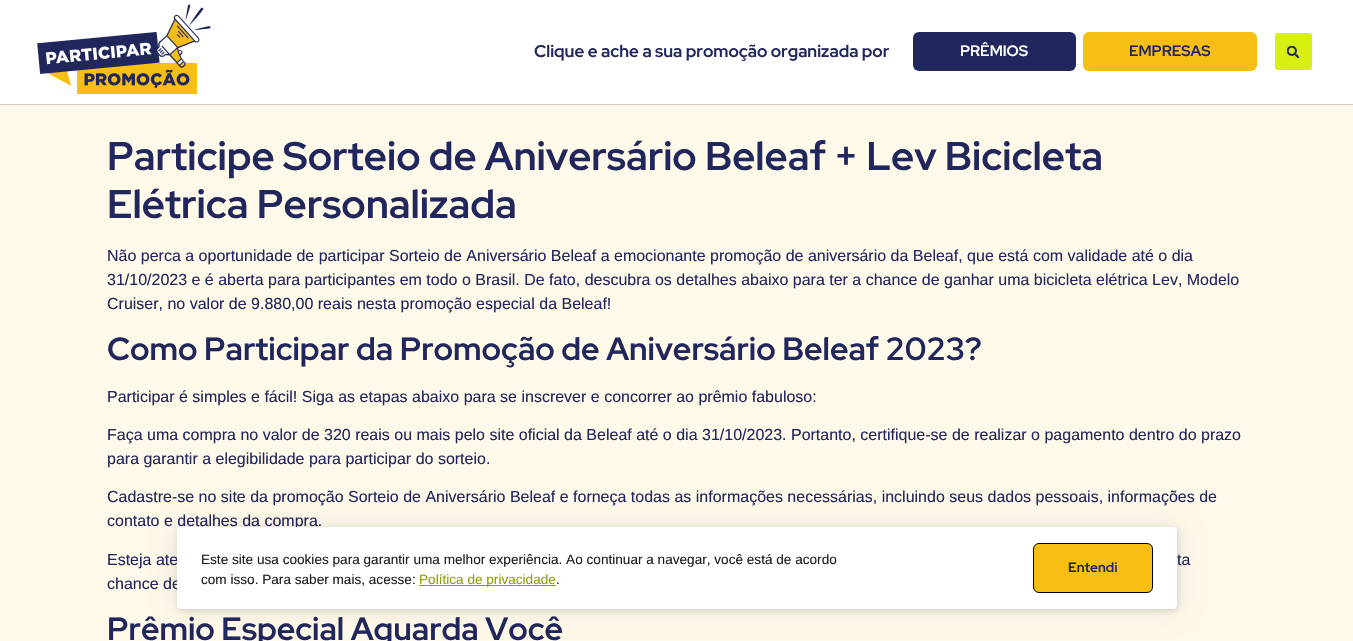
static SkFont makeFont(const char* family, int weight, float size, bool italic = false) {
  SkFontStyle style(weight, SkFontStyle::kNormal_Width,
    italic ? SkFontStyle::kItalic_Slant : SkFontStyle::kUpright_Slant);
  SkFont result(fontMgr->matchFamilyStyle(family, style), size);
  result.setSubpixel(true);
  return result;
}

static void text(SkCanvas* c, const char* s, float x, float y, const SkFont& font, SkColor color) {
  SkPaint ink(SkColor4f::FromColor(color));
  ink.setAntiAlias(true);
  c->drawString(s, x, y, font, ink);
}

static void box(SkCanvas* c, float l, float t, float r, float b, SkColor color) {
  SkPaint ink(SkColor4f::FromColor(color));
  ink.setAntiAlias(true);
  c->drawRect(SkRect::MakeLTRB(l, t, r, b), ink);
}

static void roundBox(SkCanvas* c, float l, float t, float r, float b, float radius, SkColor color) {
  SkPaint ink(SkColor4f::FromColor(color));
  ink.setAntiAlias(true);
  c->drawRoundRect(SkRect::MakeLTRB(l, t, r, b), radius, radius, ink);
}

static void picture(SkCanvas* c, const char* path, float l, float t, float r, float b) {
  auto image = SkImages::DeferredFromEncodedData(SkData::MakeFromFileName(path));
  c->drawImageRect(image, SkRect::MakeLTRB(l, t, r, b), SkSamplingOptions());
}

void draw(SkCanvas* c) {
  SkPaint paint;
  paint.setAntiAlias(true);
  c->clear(0xfffef9e9);
  box(c, 0, 0, 1353, 104, 0xffffffff);
  box(c, 0, 104, 1353, 105, 0xffcacaca);
  picture(c, "img_01.png", 37, 4, 211, 94);
  SkFont face1 = makeFont("Red Hat Display", 700, 17);
  text(c, "Clique e ache a sua promoção organizada por", 534, 57, face1, 0xff21275d);
  roundBox(c, 913, 32, 1076, 71, 6, 0xff21275d);
  SkFont face2 = makeFont("Red Hat Display", 700, 15);
  text(c, "PRÊMIOS", 960, 56, face2, 0xffffffff);
  roundBox(c, 1083, 32, 1257, 71, 6, 0xfff7be13);
  text(c, "EMPRESAS", 1129, 56, face2, 0xff21275d);
  roundBox(c, 1275, 33, 1312, 70, 3, 0xffd7ef11);
  picture(c, "img_02.png", 1287, 46, 1300, 58);
  SkFont face3 = makeFont("Red Hat Display", 700, 40);
  text(c, "Participe Sorteio de Aniversário Beleaf + Lev Bicicleta", 107, 170, face3, 0xff21275d);
  text(c, "Elétrica Personalizada", 107, 218, face3, 0xff21275d);
  SkFont face4 = makeFont("Liberation Sans", 400, 16);
  text(c, "Não perca a oportunidade de participar Sorteio de Aniversário Beleaf a emocionante promoção de aniversário da Beleaf, que está com validade até o dia", 107, 261, face4, 0xff21275d);
  text(c, "31/10/2023 e é aberta para participantes em todo o Brasil. De fato, descubra os detalhes abaixo para ter a chance de ganhar uma bicicleta elétrica Lev, Modelo", 107, 285, face4, 0xff21275d);
  text(c, "Cruiser, no valor de 9.880,00 reais nesta promoção especial da Beleaf!", 107, 309, face4, 0xff21275d);
  SkFont face5 = makeFont("Red Hat Display", 700, 32);
  text(c, "Como Participar da Promoção de Aniversário Beleaf 2023?", 107, 360, face5, 0xff21275d);
  text(c, "Participar é simples e fácil! Siga as etapas abaixo para se inscrever e concorrer ao prêmio fabuloso:", 107, 402, face4, 0xff21275d);
  text(c, "Faça uma compra no valor de 320 reais ou mais pelo site oficial da Beleaf até o dia 31/10/2023. Portanto, certifique-se de realizar o pagamento dentro do prazo", 107, 440, face4, 0xff21275d);
  text(c, "para garantir a elegibilidade para participar do sorteio.", 107, 464, face4, 0xff21275d);
  text(c, "Cadastre-se no site da promoção Sorteio de Aniversário Beleaf e forneça todas as informações necessárias, incluindo seus dados pessoais, informações de", 107, 502, face4, 0xff21275d);
  text(c, "contato e detalhes da compra.", 107, 526, face4, 0xff21275d);
  text(c, "Esteja ate", 107, 565, face4, 0xff21275d);
  text(c, "ta", 1177, 565, face4, 0xff21275d);
  text(c, "chance de", 107, 589, face4, 0xff21275d);
  text(c, "Prêmio Especial Aguarda Você", 107, 640, face5, 0xff21275d);
  paint.setColor(0x1a000000);
  paint.setMaskFilter(SkMaskFilter::MakeBlur(kNormal_SkBlurStyle, 2.5f));
  c->drawRoundRect(SkRect::MakeLTRB(178, 529, 1178, 611), 4, 4, paint);
  paint.setMaskFilter(nullptr);
  paint.setMaskFilter(SkMaskFilter::MakeBlur(kNormal_SkBlurStyle, 12.5f));
  c->drawRoundRect(SkRect::MakeLTRB(177, 527, 1177, 609), 4, 4, paint);
  paint.setMaskFilter(nullptr);
  roundBox(c, 177, 527, 1177, 609, 4, 0xffffffff);
  SkFont face6 = makeFont("Liberation Sans", 400, 13.6f);
  text(c, "Este site usa cookies para garantir uma melhor experiência. Ao continuar a navegar, você está de acordo", 201, 564, face6, 0xff1e1e1e);
  text(c, "com isso. Para saber mais, acesse:", 201, 584, face6, 0xff1e1e1e);
  box(c, 419, 585, 556, 586, 0xff8e9f06);
  text(c, "Política de privacidade", 419, 584, face6, 0xff8e9f06);
  text(c, ".", 556, 584, face6, 0xff1e1e1e);
  paint.setColor(0xfff7be13);
  c->drawRoundRect(SkRect::MakeLTRB(1033.5f, 543.5f, 1152.5f, 592.5f), 5.5f, 5.5f, paint);
  paint.setStyle(SkPaint::kStroke_Style);
  paint.setStrokeWidth(1);
  paint.setColor(0xff000000);
  c->drawRoundRect(SkRect::MakeLTRB(1033.5f, 543.5f, 1152.5f, 592.5f), 5.5f, 5.5f, paint);
  SkFont face7 = makeFont("Red Hat Display", 700, 13.6f);
  text(c, "Entendi", 1068, 572, face7, 0xff21275d);
}
